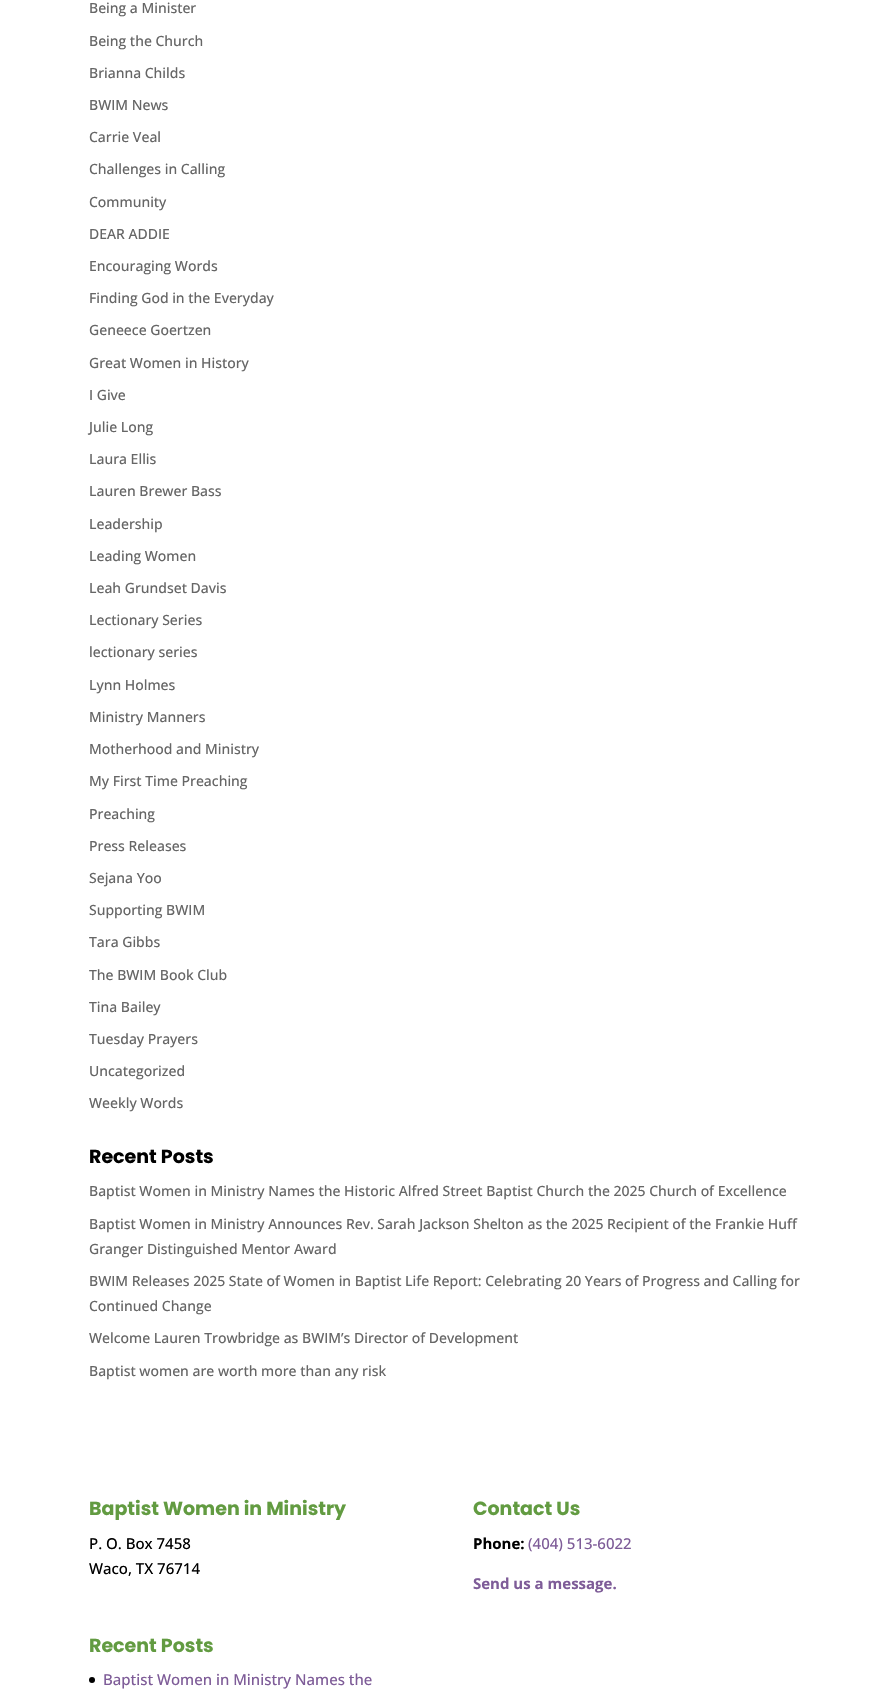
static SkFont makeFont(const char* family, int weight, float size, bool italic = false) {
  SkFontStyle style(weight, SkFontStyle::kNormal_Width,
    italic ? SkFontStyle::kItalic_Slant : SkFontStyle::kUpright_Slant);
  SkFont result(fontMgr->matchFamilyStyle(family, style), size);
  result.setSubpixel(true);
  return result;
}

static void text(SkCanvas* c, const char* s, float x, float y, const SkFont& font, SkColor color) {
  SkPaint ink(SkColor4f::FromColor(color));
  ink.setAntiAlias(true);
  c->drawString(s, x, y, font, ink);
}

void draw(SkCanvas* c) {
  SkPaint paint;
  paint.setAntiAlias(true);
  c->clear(0xffffffff);
  SkFont face1 = makeFont("Open Sans", 500, 14);
  text(c, "Being a Minister", 89, 13, face1, 0xff666666);
  text(c, "Being the Church", 89, 46, face1, 0xff666666);
  text(c, "Brianna Childs", 89, 78, face1, 0xff666666);
  text(c, "BWIM News", 89, 110, face1, 0xff666666);
  text(c, "Carrie Veal", 89, 142, face1, 0xff666666);
  text(c, "Challenges in Calling", 89, 174, face1, 0xff666666);
  text(c, "Community", 89, 207, face1, 0xff666666);
  text(c, "DEAR ADDIE", 89, 239, face1, 0xff666666);
  text(c, "Encouraging Words", 89, 271, face1, 0xff666666);
  text(c, "Finding God in the Everyday", 89, 303, face1, 0xff666666);
  text(c, "Geneece Goertzen", 89, 335, face1, 0xff666666);
  text(c, "Great Women in History", 89, 368, face1, 0xff666666);
  text(c, "I Give", 89, 400, face1, 0xff666666);
  text(c, "Julie Long", 89, 432, face1, 0xff666666);
  text(c, "Laura Ellis", 89, 464, face1, 0xff666666);
  text(c, "Lauren Brewer Bass", 89, 496, face1, 0xff666666);
  text(c, "Leadership", 89, 529, face1, 0xff666666);
  text(c, "Leading Women", 89, 561, face1, 0xff666666);
  text(c, "Leah Grundset Davis", 89, 593, face1, 0xff666666);
  text(c, "Lectionary Series", 89, 625, face1, 0xff666666);
  text(c, "lectionary series", 89, 657, face1, 0xff666666);
  text(c, "Lynn Holmes", 89, 690, face1, 0xff666666);
  text(c, "Ministry Manners", 89, 722, face1, 0xff666666);
  text(c, "Motherhood and Ministry", 89, 754, face1, 0xff666666);
  text(c, "My First Time Preaching", 89, 786, face1, 0xff666666);
  text(c, "Preaching", 89, 819, face1, 0xff666666);
  text(c, "Press Releases", 89, 851, face1, 0xff666666);
  text(c, "Sejana Yoo", 89, 883, face1, 0xff666666);
  text(c, "Supporting BWIM", 89, 915, face1, 0xff666666);
  text(c, "Tara Gibbs", 89, 947, face1, 0xff666666);
  text(c, "The BWIM Book Club", 89, 980, face1, 0xff666666);
  text(c, "Tina Bailey", 89, 1012, face1, 0xff666666);
  text(c, "Tuesday Prayers", 89, 1044, face1, 0xff666666);
  text(c, "Uncategorized", 89, 1076, face1, 0xff666666);
  text(c, "Weekly Words", 89, 1108, face1, 0xff666666);
  SkFont face2 = makeFont("Poppins", 700, 19);
  text(c, "Recent Posts", 89, 1163, face2, 0xff000000);
  text(c, "Baptist Women in Ministry Names the Historic Alfred Street Baptist Church the 2025 Church of Excellence", 89, 1196, face1, 0xff666666);
  text(c, "Baptist Women in Ministry Announces Rev. Sarah Jackson Shelton as the 2025 Recipient of the Frankie Huff", 89, 1229, face1, 0xff666666);
  text(c, "Granger Distinguished Mentor Award", 89, 1254, face1, 0xff666666);
  text(c, "BWIM Releases 2025 State of Women in Baptist Life Report: Celebrating 20 Years of Progress and Calling for", 89, 1286, face1, 0xff666666);
  text(c, "Continued Change", 89, 1311, face1, 0xff666666);
  text(c, "Welcome Lauren Trowbridge as BWIM’s Director of Development", 89, 1343, face1, 0xff666666);
  text(c, "Baptist women are worth more than any risk", 89, 1376, face1, 0xff666666);
  text(c, "Baptist Women in Ministry", 89, 1515, face2, 0xff629b41);
  SkFont face3 = makeFont("Open Sans", 500, 15);
  text(c, "P. O. Box 7458", 89, 1549, face3, 0xff000000);
  text(c, "Waco, TX 76714", 89, 1574, face3, 0xff000000);
  text(c, "Contact Us", 473, 1515, face2, 0xff629b41);
  SkFont face4 = makeFont("Open Sans", 700, 15);
  text(c, "Phone:", 473, 1549, face4, 0xff000000);
  text(c, "(404) 513-6022", 528, 1549, face3, 0xff7e5c98);
  text(c, "Send us a message.", 473, 1589, face4, 0xff7e5c98);
  text(c, "Recent Posts", 89, 1652, face2, 0xff629b41);
  paint.setColor(0xff000000);
  c->drawCircle(92, 1680, 3, paint);
  text(c, "Baptist Women in Ministry Names the", 103, 1685, face3, 0xff7e5c98);
}
